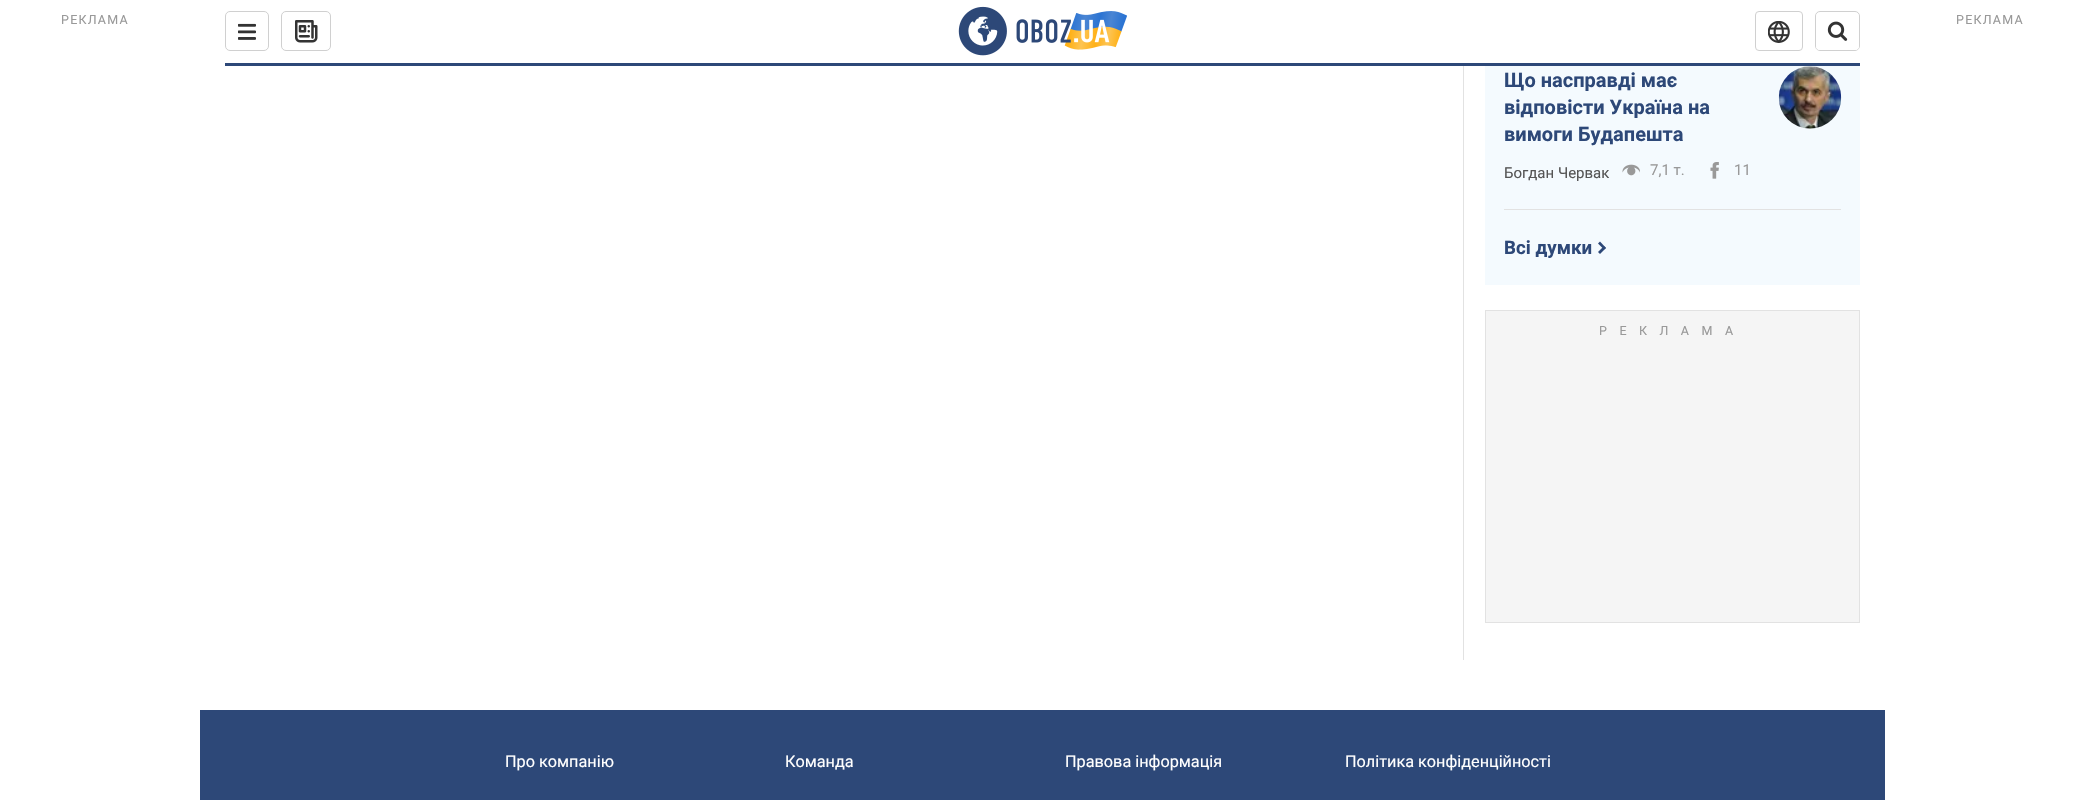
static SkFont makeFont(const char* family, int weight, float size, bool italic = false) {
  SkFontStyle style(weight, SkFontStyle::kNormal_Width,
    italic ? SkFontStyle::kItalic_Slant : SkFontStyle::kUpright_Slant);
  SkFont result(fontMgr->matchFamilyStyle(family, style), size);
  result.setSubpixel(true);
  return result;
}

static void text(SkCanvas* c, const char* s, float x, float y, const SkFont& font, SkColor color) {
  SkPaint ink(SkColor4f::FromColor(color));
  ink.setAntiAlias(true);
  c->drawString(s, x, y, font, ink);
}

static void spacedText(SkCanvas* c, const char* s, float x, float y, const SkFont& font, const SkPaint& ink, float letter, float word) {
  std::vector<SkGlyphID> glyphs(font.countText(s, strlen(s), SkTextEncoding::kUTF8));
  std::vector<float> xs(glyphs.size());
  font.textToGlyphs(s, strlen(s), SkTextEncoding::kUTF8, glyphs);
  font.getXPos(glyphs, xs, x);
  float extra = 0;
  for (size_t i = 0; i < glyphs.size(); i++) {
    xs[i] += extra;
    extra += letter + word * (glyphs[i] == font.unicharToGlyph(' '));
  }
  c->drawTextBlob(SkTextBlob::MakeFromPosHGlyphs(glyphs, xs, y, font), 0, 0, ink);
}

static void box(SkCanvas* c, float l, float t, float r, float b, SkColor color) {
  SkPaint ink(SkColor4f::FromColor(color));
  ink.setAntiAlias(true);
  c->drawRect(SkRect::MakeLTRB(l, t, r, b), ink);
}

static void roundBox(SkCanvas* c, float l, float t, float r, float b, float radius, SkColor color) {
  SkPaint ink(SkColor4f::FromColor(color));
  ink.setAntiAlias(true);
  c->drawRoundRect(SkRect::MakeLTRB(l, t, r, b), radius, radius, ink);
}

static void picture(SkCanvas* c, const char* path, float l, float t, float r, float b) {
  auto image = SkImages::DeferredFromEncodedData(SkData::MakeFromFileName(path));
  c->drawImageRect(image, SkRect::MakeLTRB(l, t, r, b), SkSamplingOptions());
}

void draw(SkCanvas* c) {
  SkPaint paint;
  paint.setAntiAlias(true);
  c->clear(0xffffffff);
  SkFont face1 = makeFont("Roboto", 400, 12.5f);
  paint.setColor(0xff999999);
  spacedText(c, "РЕКЛАМА", 61, 24, face1, paint, 1.25f, 0);
  spacedText(c, "РЕКЛАМА", 1956, 24, face1, paint, 1.25f, 0);
  box(c, 225, 63, 1860, 66, 0xff2d4878);
  paint.setStyle(SkPaint::kStroke_Style);
  paint.setStrokeWidth(1);
  paint.setColor(0xffd0d0d0);
  c->drawRoundRect(SkRect::MakeLTRB(225.5f, 11.5f, 268.5f, 50.5f), 4.5f, 4.5f, paint);
  picture(c, "img_01.png", 238, 23, 256, 40);
  c->drawRoundRect(SkRect::MakeLTRB(281.5f, 11.5f, 330.5f, 50.5f), 4.5f, 4.5f, paint);
  picture(c, "img_02.png", 295, 20, 318, 43);
  picture(c, "img_03.png", 958, 6, 1127, 56);
  c->drawRoundRect(SkRect::MakeLTRB(1755.5f, 11.5f, 1802.5f, 50.5f), 3.5f, 3.5f, paint);
  picture(c, "img_04.png", 1768, 21, 1790, 43);
  c->drawRoundRect(SkRect::MakeLTRB(1815.5f, 11.5f, 1859.5f, 50.5f), 4.5f, 4.5f, paint);
  roundBox(c, 1816, 13, 1859, 50, 4, 0xffffffff);
  picture(c, "img_05.png", 1827, 21, 1848, 41);
  box(c, 1463, 66, 1464, 660, 0xffe2e2e2);
  box(c, 1485, 66, 1860, 285, 0xfff4fafe);
  box(c, 1504, 209, 1841, 210, 0xffe2e2e2);
  SkFont face2 = makeFont("Roboto", 700, 20);
  text(c, "Що насправді має", 1504, 87, face2, 0xff2d4878);
  text(c, "відповісти Україна на", 1504, 114, face2, 0xff2d4878);
  text(c, "вимоги Будапешта", 1504, 141, face2, 0xff2d4878);
  SkFont face3 = makeFont("Roboto", 400, 15);
  text(c, "Богдан Червак", 1504, 178, face3, 0xff555555);
  picture(c, "img_06.png", 1622, 164, 1640, 176);
  text(c, "7,1 т.", 1650, 175, face3, 0xff999999);
  picture(c, "img_07.png", 1710, 162, 1719, 179);
  text(c, "11", 1734, 175, face3, 0xff999999);
  picture(c, "img_08.png", 1778, 66, 1842, 129);
  SkFont face4 = makeFont("Roboto", 700, 18.75f);
  text(c, "Всі думки", 1504, 254, face4, 0xff2d4878);
  paint.setStyle(SkPaint::kFill_Style);
  paint.setColor(0xff2d4878);
  c->drawPath(SkPathBuilder().moveTo(1598, 243.5f).lineTo(1600, 241.5f).lineTo(1606, 248).lineTo(1604, 249.5f).close().detach(), paint);
  c->drawPath(SkPathBuilder().moveTo(1598, 252).lineTo(1604, 246).lineTo(1606, 248).lineTo(1600, 254).close().detach(), paint);
  paint.setColor(0xfff5f5f5);
  c->drawRect(SkRect::MakeLTRB(1485.5f, 310.5f, 1859.5f, 622.5f), paint);
  paint.setStyle(SkPaint::kStroke_Style);
  paint.setColor(0xffe2e2e2);
  c->drawRect(SkRect::MakeLTRB(1485.5f, 310.5f, 1859.5f, 622.5f), paint);
  paint.setStyle(SkPaint::kFill_Style);
  paint.setColor(0xff999999);
  spacedText(c, "РЕКЛАМА", 1599, 335, face1, paint, 12.5f, 0);
  box(c, 200, 710, 1885, 800, 0xff2d4878);
  SkFont face5 = makeFont("Roboto", 400, 16.25f);
  text(c, "Про компанію", 505, 767, face5, 0xffffffff);
  text(c, "Команда", 785, 767, face5, 0xffffffff);
  text(c, "Правова інформація", 1065, 767, face5, 0xffffffff);
  text(c, "Політика конфіденційності", 1345, 767, face5, 0xffffffff);
}
